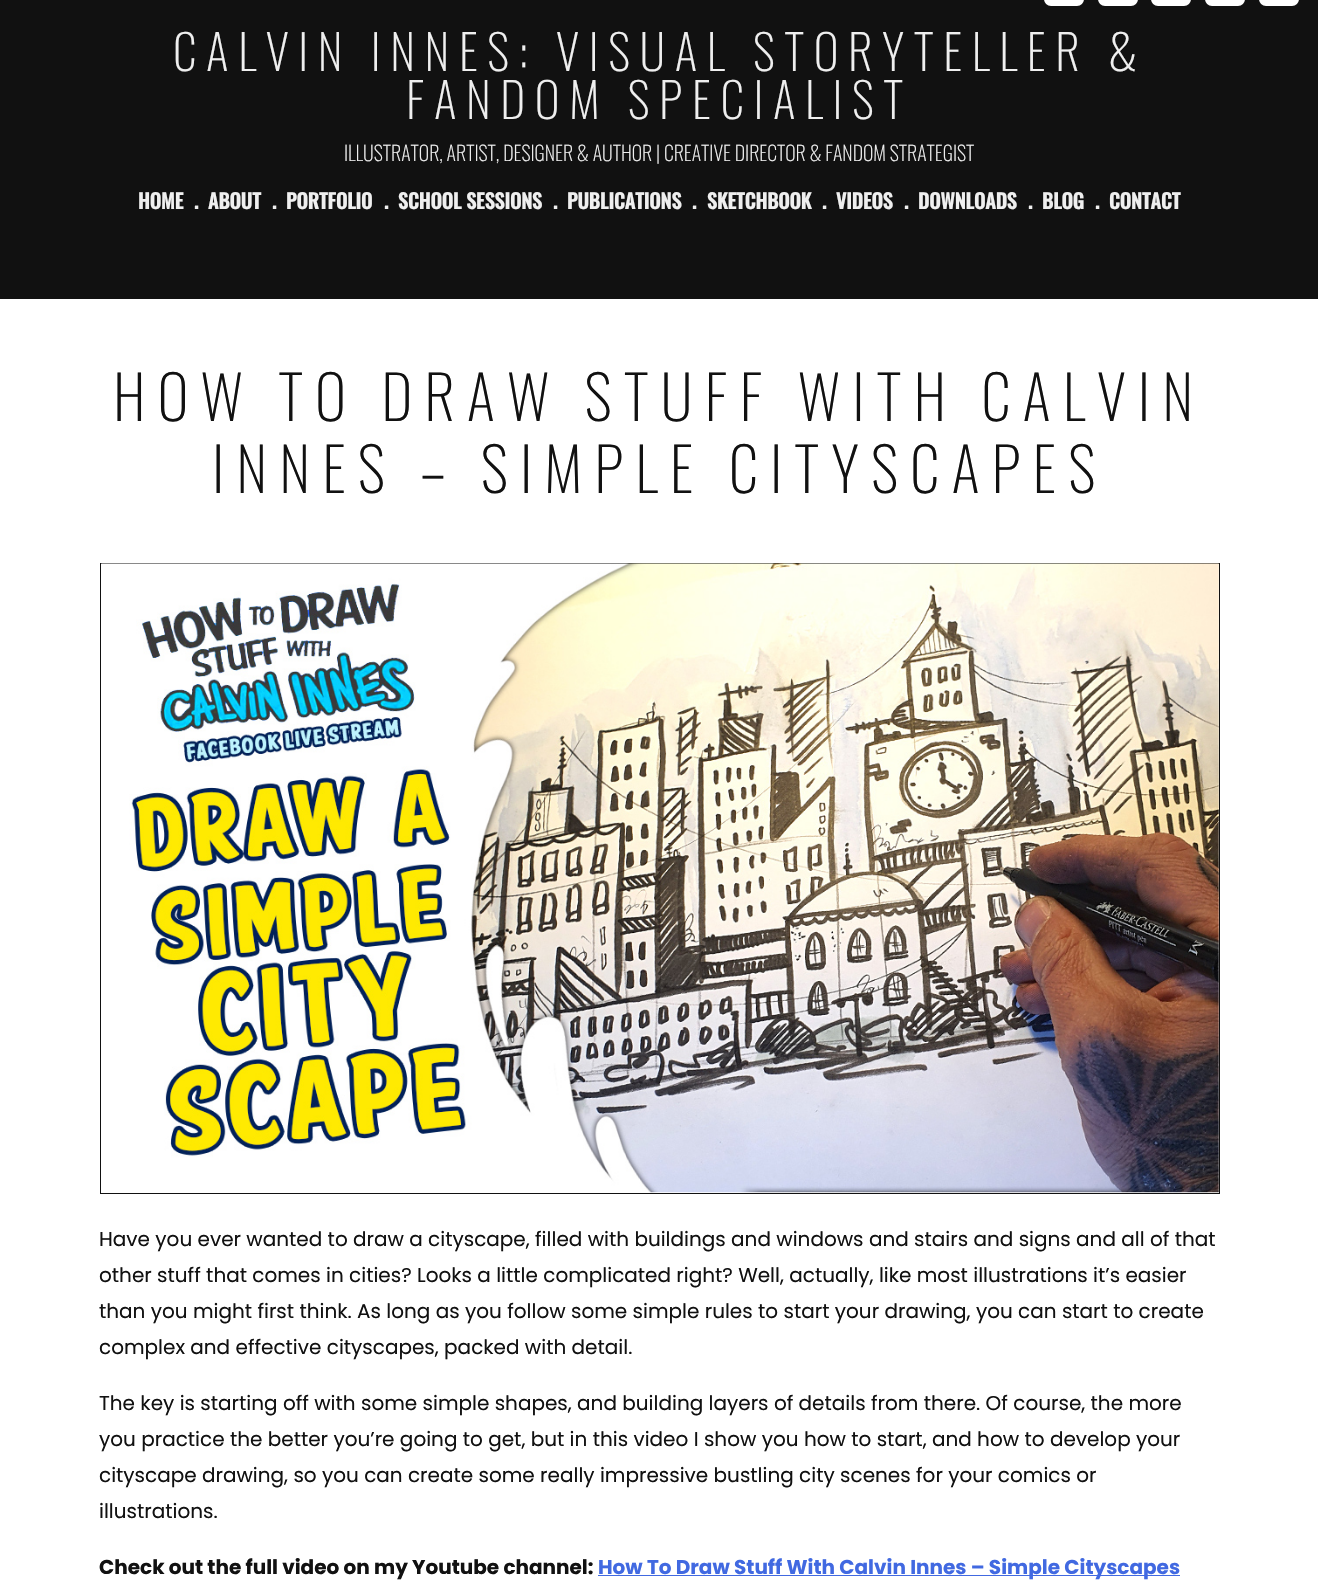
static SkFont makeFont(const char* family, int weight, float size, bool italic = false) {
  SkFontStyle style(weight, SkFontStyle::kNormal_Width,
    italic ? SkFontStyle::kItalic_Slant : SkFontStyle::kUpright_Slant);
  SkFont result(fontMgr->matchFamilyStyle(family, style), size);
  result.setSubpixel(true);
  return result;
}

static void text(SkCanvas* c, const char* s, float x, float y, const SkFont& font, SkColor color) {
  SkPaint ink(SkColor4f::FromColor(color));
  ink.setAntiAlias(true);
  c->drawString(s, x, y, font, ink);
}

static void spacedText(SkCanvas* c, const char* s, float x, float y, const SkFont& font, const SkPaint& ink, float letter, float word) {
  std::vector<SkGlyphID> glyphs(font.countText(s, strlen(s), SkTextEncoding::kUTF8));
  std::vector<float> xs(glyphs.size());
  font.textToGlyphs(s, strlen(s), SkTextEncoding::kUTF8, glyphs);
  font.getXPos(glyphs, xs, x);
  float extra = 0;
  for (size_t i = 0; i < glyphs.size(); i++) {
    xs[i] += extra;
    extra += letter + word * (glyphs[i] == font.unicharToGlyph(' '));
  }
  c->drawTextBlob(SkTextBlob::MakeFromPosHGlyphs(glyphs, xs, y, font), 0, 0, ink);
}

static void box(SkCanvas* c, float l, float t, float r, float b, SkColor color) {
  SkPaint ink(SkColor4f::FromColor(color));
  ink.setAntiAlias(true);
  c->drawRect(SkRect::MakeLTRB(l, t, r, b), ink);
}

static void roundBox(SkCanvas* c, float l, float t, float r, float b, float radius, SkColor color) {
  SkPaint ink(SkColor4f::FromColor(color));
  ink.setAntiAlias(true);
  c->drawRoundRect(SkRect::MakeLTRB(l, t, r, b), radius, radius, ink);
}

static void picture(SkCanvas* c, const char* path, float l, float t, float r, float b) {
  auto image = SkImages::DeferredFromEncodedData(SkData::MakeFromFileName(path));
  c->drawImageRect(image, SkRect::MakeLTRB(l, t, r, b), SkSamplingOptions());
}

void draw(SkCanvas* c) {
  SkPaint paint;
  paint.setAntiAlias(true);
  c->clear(0xffffffff);
  box(c, 0, 0, 1318, 299, 0xff111111);
  roundBox(c, 1044, -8, 1084, 6, 8, 0xffffffff);
  roundBox(c, 1098, -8, 1138, 6, 8, 0xffffffff);
  roundBox(c, 1151, -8, 1191, 6, 8, 0xffffffff);
  roundBox(c, 1205, -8, 1245, 6, 8, 0xffffffff);
  roundBox(c, 1259, -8, 1299, 6, 8, 0xffffffff);
  SkFont face1 = makeFont("Oswald", 200, 48);
  paint.setColor(0xffefefef);
  spacedText(c, "CALVIN INNES: VISUAL STORYTELLER &", 173, 71, face1, paint, 9.6f, 0);
  spacedText(c, "FANDOM SPECIALIST", 406, 119, face1, paint, 9.6f, 0);
  SkFont face2 = makeFont("Oswald", 200, 20);
  text(c, "ILLUSTRATOR, ARTIST, DESIGNER & AUTHOR | CREATIVE DIRECTOR & FANDOM STRATEGIST", 344, 161, face2, 0xffefefef);
  SkFont face3 = makeFont("Oswald", 700, 20);
  text(c, "HOME", 138, 209, face3, 0xffefefef);
  text(c, ".", 194, 209, face3, 0xffefefef);
  text(c, "ABOUT", 208, 209, face3, 0xffefefef);
  text(c, ".", 272, 209, face3, 0xffefefef);
  text(c, "PORTFOLIO", 286, 209, face3, 0xffefefef);
  text(c, ".", 384, 209, face3, 0xffefefef);
  text(c, "SCHOOL SESSIONS", 398, 209, face3, 0xffefefef);
  text(c, ".", 553, 209, face3, 0xffefefef);
  text(c, "PUBLICATIONS", 567, 209, face3, 0xffefefef);
  text(c, ".", 692, 209, face3, 0xffefefef);
  text(c, "SKETCHBOOK", 707, 209, face3, 0xffefefef);
  text(c, ".", 822, 209, face3, 0xffefefef);
  text(c, "VIDEOS", 836, 209, face3, 0xffefefef);
  text(c, ".", 904, 209, face3, 0xffefefef);
  text(c, "DOWNLOADS", 918, 209, face3, 0xffefefef);
  text(c, ".", 1028, 209, face3, 0xffefefef);
  text(c, "BLOG", 1042, 209, face3, 0xffefefef);
  text(c, ".", 1095, 209, face3, 0xffefefef);
  text(c, "CONTACT", 1109, 209, face3, 0xffefefef);
  SkFont face4 = makeFont("Oswald", 200, 60);
  paint.setColor(0xff111111);
  spacedText(c, "HOW TO DRAW STUFF WITH CALVIN", 113, 421, face4, paint, 12, 0);
  spacedText(c, "INNES – SIMPLE CITYSCAPES", 212, 493, face4, paint, 12, 0);
  paint.setStyle(SkPaint::kStroke_Style);
  paint.setStrokeWidth(1);
  c->drawRect(SkRect::MakeLTRB(100.5f, 563.5f, 1219.5f, 1193.5f), paint);
  picture(c, "img_01.png", 101, 563, 1219, 1193);
  SkFont face5 = makeFont("Poppins", 400, 20);
  text(c, "Have you ever wanted to draw a cityscape, filled with buildings and windows and stairs and signs and all of that", 99, 1246, face5, 0xff111111);
  text(c, "other stuff that comes in cities? Looks a little complicated right? Well, actually, like most illustrations it’s easier", 99, 1282, face5, 0xff111111);
  text(c, "than you might first think. As long as you follow some simple rules to start your drawing, you can start to create", 99, 1318, face5, 0xff111111);
  text(c, "complex and effective cityscapes, packed with detail.", 99, 1354, face5, 0xff111111);
  text(c, "The key is starting off with some simple shapes, and building layers of details from there. Of course, the more", 99, 1410, face5, 0xff111111);
  text(c, "you practice the better you’re going to get, but in this video I show you how to start, and how to develop your", 99, 1446, face5, 0xff111111);
  text(c, "cityscape drawing, so you can create some really impressive bustling city scenes for your comics or", 99, 1482, face5, 0xff111111);
  text(c, "illustrations.", 99, 1518, face5, 0xff111111);
  SkFont face6 = makeFont("Poppins", 700, 20);
  text(c, "Check out the full video on my Youtube channel:", 99, 1574, face6, 0xff111111);
  box(c, 598, 1575, 1180, 1576, 0xff4169e1);
  text(c, "How To Draw Stuff With Calvin Innes – Simple Cityscapes", 598, 1574, face6, 0xff4169e1);
}
